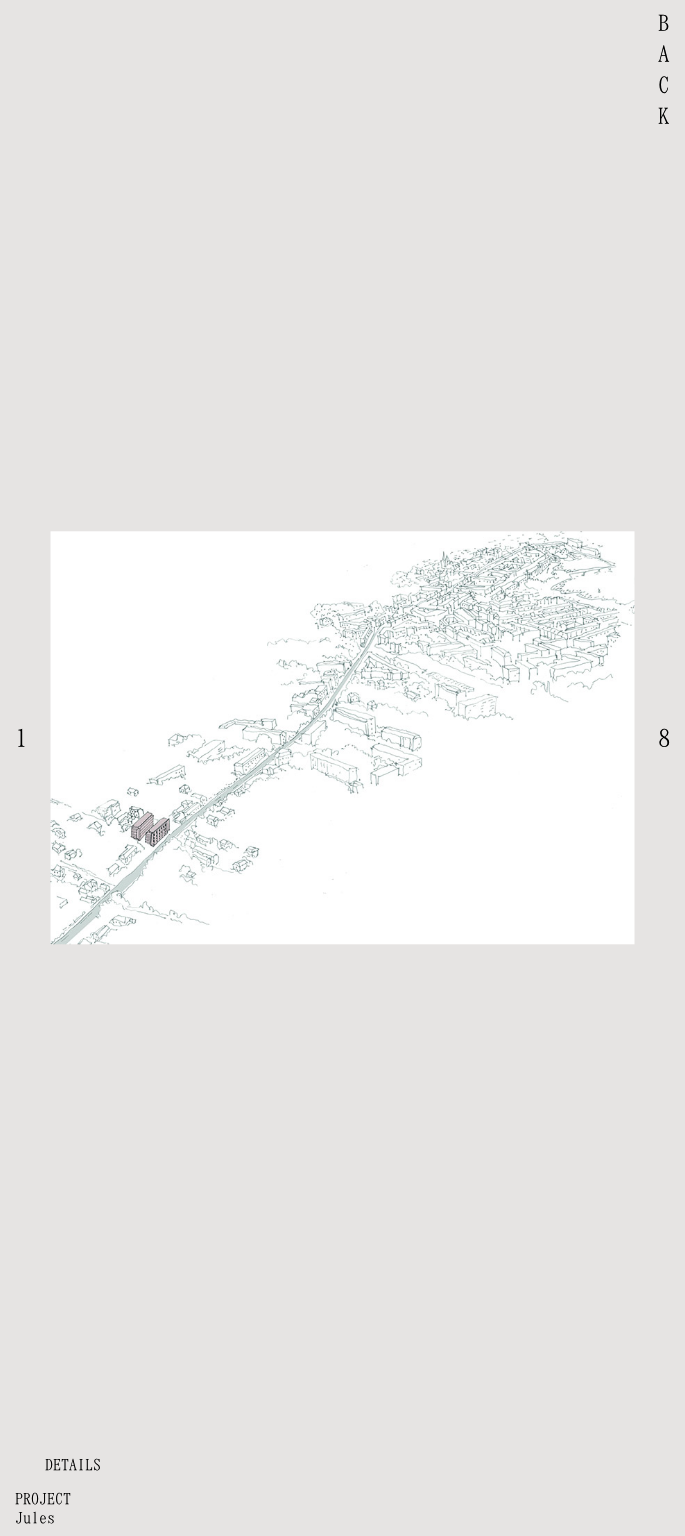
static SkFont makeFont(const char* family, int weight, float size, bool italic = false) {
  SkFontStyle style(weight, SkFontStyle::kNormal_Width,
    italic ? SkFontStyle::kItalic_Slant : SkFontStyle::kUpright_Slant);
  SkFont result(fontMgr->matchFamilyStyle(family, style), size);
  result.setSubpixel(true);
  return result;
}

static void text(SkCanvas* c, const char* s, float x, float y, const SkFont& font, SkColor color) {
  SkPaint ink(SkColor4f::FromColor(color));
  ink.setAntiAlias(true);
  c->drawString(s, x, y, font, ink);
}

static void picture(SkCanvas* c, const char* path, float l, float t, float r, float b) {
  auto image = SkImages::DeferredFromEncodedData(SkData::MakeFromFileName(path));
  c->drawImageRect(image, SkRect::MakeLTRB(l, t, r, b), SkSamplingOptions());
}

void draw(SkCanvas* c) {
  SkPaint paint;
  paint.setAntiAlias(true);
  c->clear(0xffe6e4e3);
  SkFont face1 = makeFont("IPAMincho", 400, 23);
  text(c, "B", 658, 32, face1, 0xff000000);
  text(c, "A", 658, 63, face1, 0xff000000);
  text(c, "C", 658, 94, face1, 0xff000000);
  text(c, "K", 658, 125, face1, 0xff000000);
  SkFont face2 = makeFont("IPAMincho", 400, 25);
  text(c, "1", 15, 748, face2, 0xff000000);
  picture(c, "img_01.png", 50, 531, 635, 945);
  text(c, "8", 658, 748, face2, 0xff000000);
  SkFont face3 = makeFont("IPAMincho", 400, 16);
  text(c, "DETAILS", 45, 1471, face3, 0xff000000);
  text(c, "PROJECT", 15, 1505, face3, 0xff000000);
  text(c, "Jules", 15, 1524, face3, 0xff000000);
}
